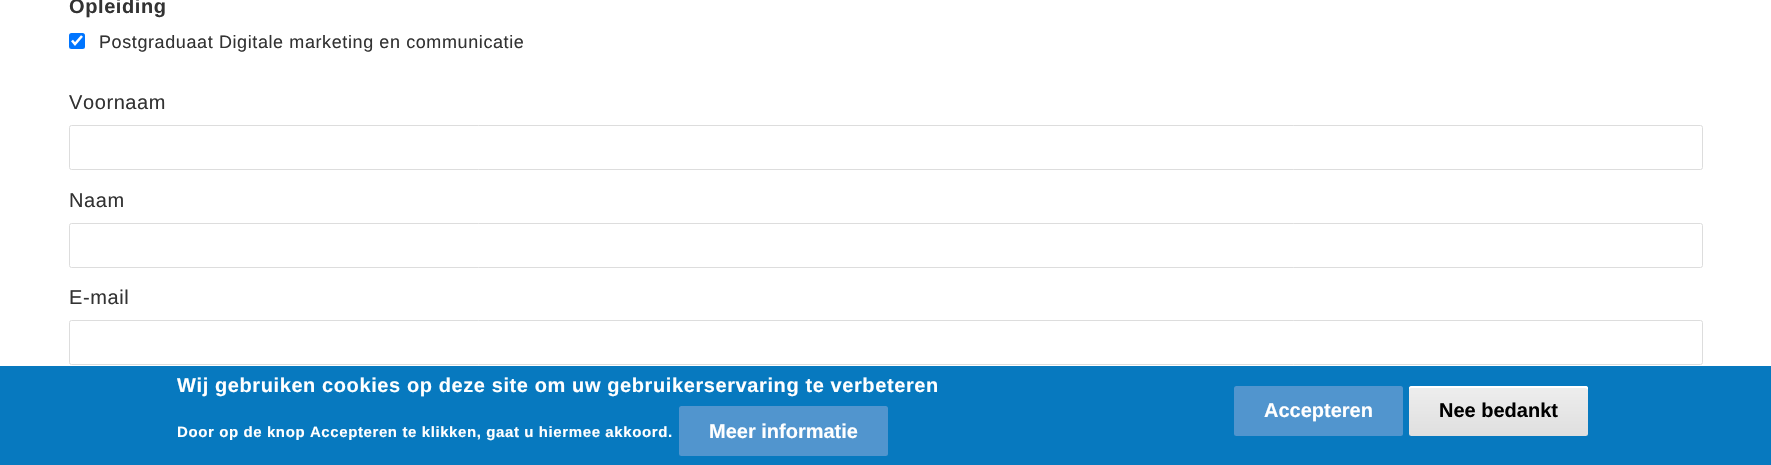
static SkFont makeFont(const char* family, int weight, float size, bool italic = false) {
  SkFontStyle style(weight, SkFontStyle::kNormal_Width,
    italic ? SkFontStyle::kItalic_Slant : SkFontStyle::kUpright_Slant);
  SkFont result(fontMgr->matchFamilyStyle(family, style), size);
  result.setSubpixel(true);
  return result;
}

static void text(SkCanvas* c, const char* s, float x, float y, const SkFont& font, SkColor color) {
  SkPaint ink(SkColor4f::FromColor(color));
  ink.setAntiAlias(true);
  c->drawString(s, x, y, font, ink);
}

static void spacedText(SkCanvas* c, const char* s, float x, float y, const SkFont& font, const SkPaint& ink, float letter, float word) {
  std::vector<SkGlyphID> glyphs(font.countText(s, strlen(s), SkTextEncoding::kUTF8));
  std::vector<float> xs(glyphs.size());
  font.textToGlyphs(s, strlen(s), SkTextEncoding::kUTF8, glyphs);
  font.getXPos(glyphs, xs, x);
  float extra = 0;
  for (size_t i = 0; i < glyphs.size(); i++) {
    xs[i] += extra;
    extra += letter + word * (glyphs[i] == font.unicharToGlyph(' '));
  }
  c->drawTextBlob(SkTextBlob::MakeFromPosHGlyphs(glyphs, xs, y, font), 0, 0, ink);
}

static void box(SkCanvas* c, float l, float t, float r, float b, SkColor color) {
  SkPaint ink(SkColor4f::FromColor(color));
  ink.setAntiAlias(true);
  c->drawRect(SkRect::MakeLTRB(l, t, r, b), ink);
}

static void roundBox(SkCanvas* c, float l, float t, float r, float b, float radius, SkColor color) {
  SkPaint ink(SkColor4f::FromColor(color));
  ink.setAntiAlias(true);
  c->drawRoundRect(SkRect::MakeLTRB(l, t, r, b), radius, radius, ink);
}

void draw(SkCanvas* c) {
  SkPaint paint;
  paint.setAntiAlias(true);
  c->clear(0xffffffff);
  SkFont face1 = makeFont("Liberation Sans", 700, 20);
  paint.setColor(0xff333333);
  spacedText(c, "Opleiding", 69, 13, face1, paint, 0.6f, 0);
  roundBox(c, 69, 33, 85, 49, 2.5f, 0xff0075ff);
  paint.setStyle(SkPaint::kStroke_Style);
  paint.setStrokeWidth(2.6f);
  paint.setColor(0xffffffff);
  c->drawPath(SkPathBuilder().moveTo(72, 40.5f).lineTo(75, 44).lineTo(82, 36).detach(), paint);
  SkFont face2 = makeFont("Liberation Sans", 400, 18);
  paint.setStyle(SkPaint::kFill_Style);
  paint.setColor(0xff333333);
  spacedText(c, "Postgraduaat Digitale marketing en communicatie", 99, 48, face2, paint, 0.6f, 0);
  SkFont face3 = makeFont("Liberation Sans", 400, 20);
  spacedText(c, "Voornaam", 69, 109, face3, paint, 0.6f, 0);
  paint.setStyle(SkPaint::kStroke_Style);
  paint.setStrokeWidth(1);
  paint.setColor(0xffdddddd);
  c->drawRoundRect(SkRect::MakeLTRB(69.5f, 125.5f, 1702.5f, 169.5f), 2, 2, paint);
  paint.setStyle(SkPaint::kFill_Style);
  paint.setColor(0xff333333);
  spacedText(c, "Naam", 69, 207, face3, paint, 0.6f, 0);
  paint.setStyle(SkPaint::kStroke_Style);
  paint.setColor(0xffdddddd);
  c->drawRoundRect(SkRect::MakeLTRB(69.5f, 223.5f, 1702.5f, 267.5f), 2, 2, paint);
  paint.setStyle(SkPaint::kFill_Style);
  paint.setColor(0xff333333);
  spacedText(c, "E-mail", 69, 304, face3, paint, 0.6f, 0);
  paint.setStyle(SkPaint::kStroke_Style);
  paint.setColor(0xffdddddd);
  c->drawRoundRect(SkRect::MakeLTRB(69.5f, 320.5f, 1702.5f, 364.5f), 2, 2, paint);
  box(c, 0, 366, 1771, 465, 0xff0779bf);
  paint.setStyle(SkPaint::kFill_Style);
  paint.setColor(0xffffffff);
  spacedText(c, "Wij gebruiken cookies op deze site om uw gebruikerservaring te verbeteren", 177, 392, face1, paint, 0.6f, 0);
  SkFont face4 = makeFont("Liberation Sans", 700, 15);
  spacedText(c, "Door op de knop Accepteren te klikken, gaat u hiermee akkoord.", 177, 437, face4, paint, 0.6f, 0);
  roundBox(c, 679, 406, 888, 456, 2.5f, 0xff5195ce);
  text(c, "Meer informatie", 709, 438, face1, 0xffffffff);
  roundBox(c, 1234, 386, 1403, 436, 2.5f, 0xff5195ce);
  text(c, "Accepteren", 1264, 417, face1, 0xffffffff);
  {
    const SkColor colors[] = {0xffededed, 0xffdfdfdf};
    const float stops[] = {0.05f, 1};
    const SkPoint ends[] = {{1498, 386}, {1498, 436}};
    paint.setShader(SkGradientShader::MakeLinear(ends, colors, stops, 2, SkTileMode::kClamp));
    paint.setAlpha(255);
  }
  c->drawRoundRect(SkRect::MakeLTRB(1409, 386, 1588, 436), 2.5f, 2.5f, paint);
  paint.setShader(nullptr);
  paint.setColor(0xffffffff);
  c->drawPath(SkPathBuilder().moveTo(1411, 388).lineTo(1585, 388).cubicTo(1586, 388, 1588, 389, 1588, 390).lineTo(1588, 388).cubicTo(1588, 387, 1587, 386, 1586, 386).lineTo(1412, 386).cubicTo(1410, 386, 1409, 387, 1409, 388).lineTo(1409, 390).cubicTo(1409, 389, 1410, 388, 1411, 388).close().detach(), paint);
  text(c, "Nee bedankt", 1439, 417, face1, 0xff000000);
}
